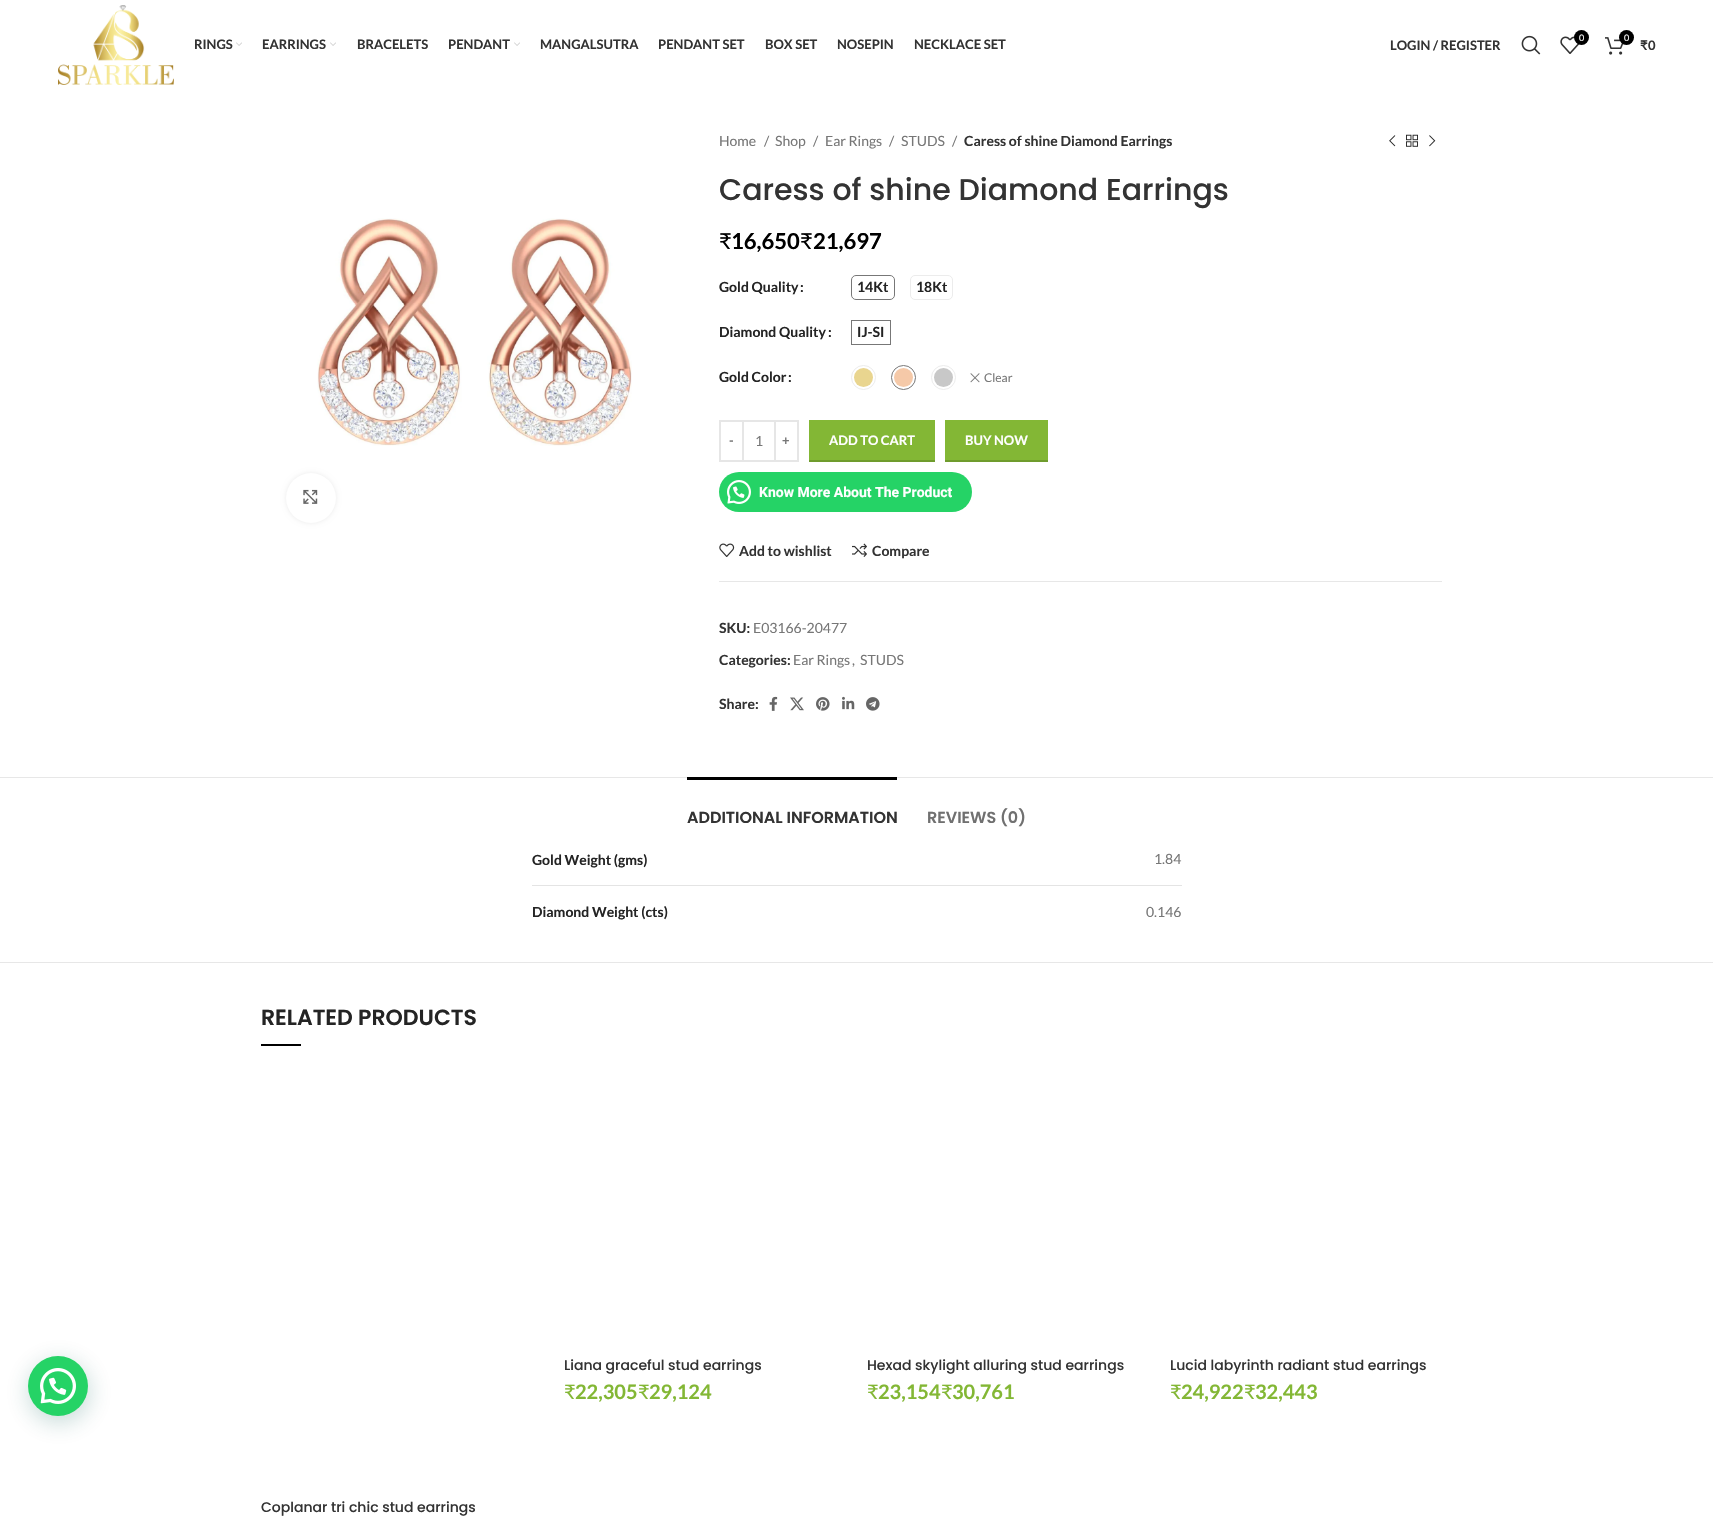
static SkFont makeFont(const char* family, int weight, float size, bool italic = false) {
  SkFontStyle style(weight, SkFontStyle::kNormal_Width,
    italic ? SkFontStyle::kItalic_Slant : SkFontStyle::kUpright_Slant);
  SkFont result(fontMgr->matchFamilyStyle(family, style), size);
  result.setSubpixel(true);
  return result;
}

static void text(SkCanvas* c, const char* s, float x, float y, const SkFont& font, SkColor color) {
  SkPaint ink(SkColor4f::FromColor(color));
  ink.setAntiAlias(true);
  c->drawString(s, x, y, font, ink);
}

static void box(SkCanvas* c, float l, float t, float r, float b, SkColor color) {
  SkPaint ink(SkColor4f::FromColor(color));
  ink.setAntiAlias(true);
  c->drawRect(SkRect::MakeLTRB(l, t, r, b), ink);
}

static void roundBox(SkCanvas* c, float l, float t, float r, float b, float radius, SkColor color) {
  SkPaint ink(SkColor4f::FromColor(color));
  ink.setAntiAlias(true);
  c->drawRoundRect(SkRect::MakeLTRB(l, t, r, b), radius, radius, ink);
}

static void picture(SkCanvas* c, const char* path, float l, float t, float r, float b) {
  auto image = SkImages::DeferredFromEncodedData(SkData::MakeFromFileName(path));
  c->drawImageRect(image, SkRect::MakeLTRB(l, t, r, b), SkSamplingOptions());
}

void draw(SkCanvas* c) {
  SkPaint paint;
  paint.setAntiAlias(true);
  c->clear(0xffffffff);
  paint.setColor(0x3d075e54);
  paint.setMaskFilter(SkMaskFilter::MakeBlur(kNormal_SkBlurStyle, 12));
  c->drawRoundRect(SkRect::MakeLTRB(29, 1362, 89, 1422), 30, 30, paint);
  paint.setMaskFilter(nullptr);
  paint.setColor(0xff25d366);
  c->drawCircle(58, 1386, 30, paint);
  picture(c, "img_01.png", 40, 1368, 76, 1404);
  picture(c, "img_02.png", 58, 5, 174, 85);
  SkFont face1 = makeFont("Lato", 700, 13);
  text(c, "RINGS", 194, 49, face1, 0xff333333);
  picture(c, "img_03.png", 236, 42, 242, 46);
  text(c, "EARRINGS", 262, 49, face1, 0xff333333);
  picture(c, "img_03.png", 330, 42, 336, 46);
  text(c, "BRACELETS", 357, 49, face1, 0xff333333);
  text(c, "PENDANT", 448, 49, face1, 0xff333333);
  picture(c, "img_03.png", 514, 42, 520, 46);
  text(c, "MANGALSUTRA", 540, 49, face1, 0xff333333);
  text(c, "PENDANT SET", 658, 49, face1, 0xff333333);
  text(c, "BOX SET", 765, 49, face1, 0xff333333);
  text(c, "NOSEPIN", 837, 49, face1, 0xff333333);
  text(c, "NECKLACE SET", 914, 49, face1, 0xff333333);
  text(c, "LOGIN / REGISTER", 1390, 50, face1, 0xff333333);
  picture(c, "img_04.png", 1521, 35, 1541, 55);
  picture(c, "img_05.png", 1560, 36, 1580, 54);
  paint.setColor(0xff000000);
  c->drawCircle(1581.5f, 37.5f, 7.5f, paint);
  SkFont face2 = makeFont("Lato", 400, 9);
  text(c, "0", 1579, 41, face2, 0xffffffff);
  picture(c, "img_06.png", 1605, 37, 1624, 55);
  c->drawCircle(1626.5f, 37.5f, 7.5f, paint);
  text(c, "0", 1624, 41, face2, 0xffffffff);
  SkFont face3 = makeFont("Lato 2", 700, 13);
  text(c, "₹", 1640, 50, face3, 0xff333333);
  text(c, "0", 1648, 50, face1, 0xff333333);
  picture(c, "img_07.png", 317, 218, 632, 446);
  paint.setColor(0x14000000);
  paint.setMaskFilter(SkMaskFilter::MakeBlur(kNormal_SkBlurStyle, 2.5f));
  c->drawRoundRect(SkRect::MakeLTRB(286, 473, 336, 523), 25, 25, paint);
  paint.setMaskFilter(nullptr);
  paint.setColor(0xffffffff);
  c->drawCircle(311, 498, 25, paint);
  picture(c, "img_08.png", 303, 489, 318, 504);
  SkFont face4 = makeFont("Lato", 400, 14);
  text(c, "Home", 719, 146, face4, 0xff777777);
  text(c, "/", 764, 146, face4, 0xff777777);
  text(c, "Shop", 775, 146, face4, 0xff777777);
  text(c, "/", 813, 146, face4, 0xff777777);
  text(c, "Ear Rings", 825, 146, face4, 0xff777777);
  text(c, "/", 889, 146, face4, 0xff777777);
  text(c, "STUDS", 901, 146, face4, 0xff777777);
  text(c, "/", 952, 146, face4, 0xff777777);
  SkFont face5 = makeFont("Lato", 700, 14);
  text(c, "Caress of shine Diamond Earrings", 964, 146, face5, 0xff333333);
  picture(c, "img_09.png", 1389, 135, 1396, 147);
  picture(c, "img_10.png", 1406, 134, 1418, 147);
  picture(c, "img_11.png", 1429, 135, 1436, 147);
  SkFont face6 = makeFont("Poppins", 500, 30);
  text(c, "Caress of shine Diamond Earrings", 719, 200, face6, 0xff333333);
  SkFont face7 = makeFont("Lato 2", 400, 22);
  text(c, "₹", 719, 249, face7, 0xff000000);
  SkFont face8 = makeFont("Lato", 700, 22);
  text(c, "16,650", 731, 249, face8, 0xff000000);
  text(c, "₹", 800, 249, face7, 0xff000000);
  text(c, "21,697", 813, 249, face8, 0xff000000);
  text(c, "Gold Quality", 719, 292, face5, 0xff242424);
  text(c, ":", 800, 292, face5, 0xff242424);
  paint.setStyle(SkPaint::kStroke_Style);
  paint.setStrokeWidth(1);
  paint.setColor(0xff777777);
  c->drawRoundRect(SkRect::MakeLTRB(851.5f, 275.5f, 894.5f, 299.5f), 4.5f, 4.5f, paint);
  text(c, "14Kt", 857, 292, face5, 0xff242424);
  paint.setColor(0xffececec);
  c->drawRoundRect(SkRect::MakeLTRB(910.5f, 275.5f, 952.5f, 299.5f), 4.5f, 4.5f, paint);
  text(c, "18Kt", 916, 292, face5, 0xff242424);
  text(c, "Diamond Quality", 719, 337, face5, 0xff242424);
  text(c, ":", 828, 337, face5, 0xff242424);
  paint.setColor(0xff777777);
  c->drawRect(SkRect::MakeLTRB(851.5f, 320.5f, 890.5f, 344.5f), paint);
  text(c, "IJ-SI", 857, 337, face5, 0xff242424);
  text(c, "Gold Color", 719, 382, face5, 0xff242424);
  text(c, ":", 788, 382, face5, 0xff242424);
  paint.setColor(0xffececec);
  c->drawCircle(863.5f, 377.5f, 12, paint);
  paint.setStyle(SkPaint::kFill_Style);
  paint.setColor(0xffe9d58f);
  c->drawCircle(863.5f, 377.5f, 9.5f, paint);
  paint.setStyle(SkPaint::kStroke_Style);
  paint.setColor(0xff777777);
  c->drawCircle(903.5f, 377.5f, 12, paint);
  paint.setStyle(SkPaint::kFill_Style);
  paint.setColor(0xfff5c9a8);
  c->drawCircle(903.5f, 377.5f, 9.5f, paint);
  paint.setStyle(SkPaint::kStroke_Style);
  paint.setColor(0xffececec);
  c->drawCircle(943.5f, 377.5f, 12, paint);
  paint.setStyle(SkPaint::kFill_Style);
  paint.setColor(0xffc8c8c8);
  c->drawCircle(943.5f, 377.5f, 9.5f, paint);
  picture(c, "img_12.png", 970, 373, 980, 383);
  SkFont face9 = makeFont("Lato", 400, 12);
  text(c, "Clear", 984, 382, face9, 0xff777777);
  paint.setStyle(SkPaint::kStroke_Style);
  paint.setStrokeWidth(2);
  paint.setColor(0xffe6e6e6);
  c->drawRect(SkRect::MakeLTRB(720, 421, 743, 461), paint);
  text(c, "-", 729, 445, face1, 0xff777777);
  box(c, 744, 420, 774, 422, 0xffe6e6e6);
  box(c, 744, 460, 774, 462, 0xffe6e6e6);
  text(c, "1", 755, 446, face4, 0xff777777);
  c->drawRect(SkRect::MakeLTRB(775, 421, 798, 461), paint);
  text(c, "+", 782, 445, face1, 0xff777777);
  box(c, 809, 420, 935, 460, 0xff83b735);
  box(c, 809, 460, 935, 462, 0xff6f9c2d);
  text(c, "ADD TO CART", 829, 445, face1, 0xffffffff);
  box(c, 945, 420, 1048, 460, 0xff83b735);
  box(c, 945, 460, 1048, 462, 0xff6f9c2d);
  text(c, "BUY NOW", 965, 445, face1, 0xffffffff);
  roundBox(c, 719, 472, 972, 512, 20, 0xff25d366);
  picture(c, "img_13.png", 727, 480, 751, 504);
  SkFont face10 = makeFont("Roboto", 700, 14);
  text(c, "Know More About The Product", 759, 497, face10, 0xffffffff);
  picture(c, "img_14.png", 719, 543, 735, 557);
  text(c, "Add to wishlist", 739, 556, face5, 0xff333333);
  picture(c, "img_15.png", 852, 543, 867, 557);
  text(c, "Compare", 872, 556, face5, 0xff333333);
  box(c, 719, 581, 1442, 582, 0xffe7e7e7);
  text(c, "SKU:", 719, 633, face5, 0xff333333);
  text(c, "E03166-20477", 753, 633, face4, 0xff777777);
  text(c, "Categories:", 719, 665, face5, 0xff333333);
  text(c, "Ear Rings", 793, 665, face4, 0xff777777);
  text(c, ",", 852, 665, face4, 0xff777777);
  text(c, "STUDS", 860, 665, face4, 0xff777777);
  text(c, "Share:", 719, 709, face5, 0xff333333);
  picture(c, "img_16.png", 769, 696, 778, 711);
  picture(c, "img_17.png", 790, 697, 804, 711);
  picture(c, "img_18.png", 816, 697, 830, 711);
  picture(c, "img_19.png", 842, 696, 855, 710);
  picture(c, "img_20.png", 866, 697, 880, 711);
  box(c, 0, 777, 1713, 778, 0xffe7e7e7);
  box(c, 687, 777, 897, 780, 0xff000000);
  SkFont face11 = makeFont("Poppins", 600, 16);
  text(c, "ADDITIONAL INFORMATION", 687, 823, face11, 0xff333333);
  text(c, "REVIEWS (0)", 927, 823, face11, 0xff707070);
  box(c, 532, 885, 1182, 886, 0xffe4e4e4);
  text(c, "Gold Weight (gms)", 532, 865, face5, 0xff242424);
  text(c, "1.84", 1154, 864, face4, 0xff777777);
  text(c, "Diamond Weight (cts)", 532, 917, face5, 0xff242424);
  text(c, "0.146", 1146, 917, face4, 0xff777777);
  box(c, 0, 962, 1713, 963, 0xffe7e7e7);
  SkFont face12 = makeFont("Poppins", 600, 22);
  text(c, "RELATED PRODUCTS", 261, 1025, face12, 0xff242424);
  box(c, 261, 1044, 301, 1046, 0xff000000);
  SkFont face13 = makeFont("Poppins", 500, 14);
  text(c, "Liana graceful stud earrings", 564, 1370, face13, 0xff333333);
  SkFont face14 = makeFont("Lato 2", 400, 20);
  text(c, "₹", 564, 1399, face14, 0xff83b735);
  SkFont face15 = makeFont("Lato", 700, 20);
  text(c, "22,305", 575, 1399, face15, 0xff83b735);
  text(c, "₹", 638, 1399, face14, 0xff83b735);
  text(c, "29,124", 649, 1399, face15, 0xff83b735);
  text(c, "Hexad skylight alluring stud earrings", 867, 1370, face13, 0xff333333);
  text(c, "₹", 867, 1399, face14, 0xff83b735);
  text(c, "23,154", 878, 1399, face15, 0xff83b735);
  text(c, "₹", 941, 1399, face14, 0xff83b735);
  text(c, "30,761", 952, 1399, face15, 0xff83b735);
  text(c, "Lucid labyrinth radiant stud earrings", 1170, 1370, face13, 0xff333333);
  text(c, "₹", 1170, 1399, face14, 0xff83b735);
  text(c, "24,922", 1181, 1399, face15, 0xff83b735);
  text(c, "₹", 1244, 1399, face14, 0xff83b735);
  text(c, "32,443", 1255, 1399, face15, 0xff83b735);
  text(c, "Coplanar tri chic stud earrings", 261, 1512, face13, 0xff333333);
}
